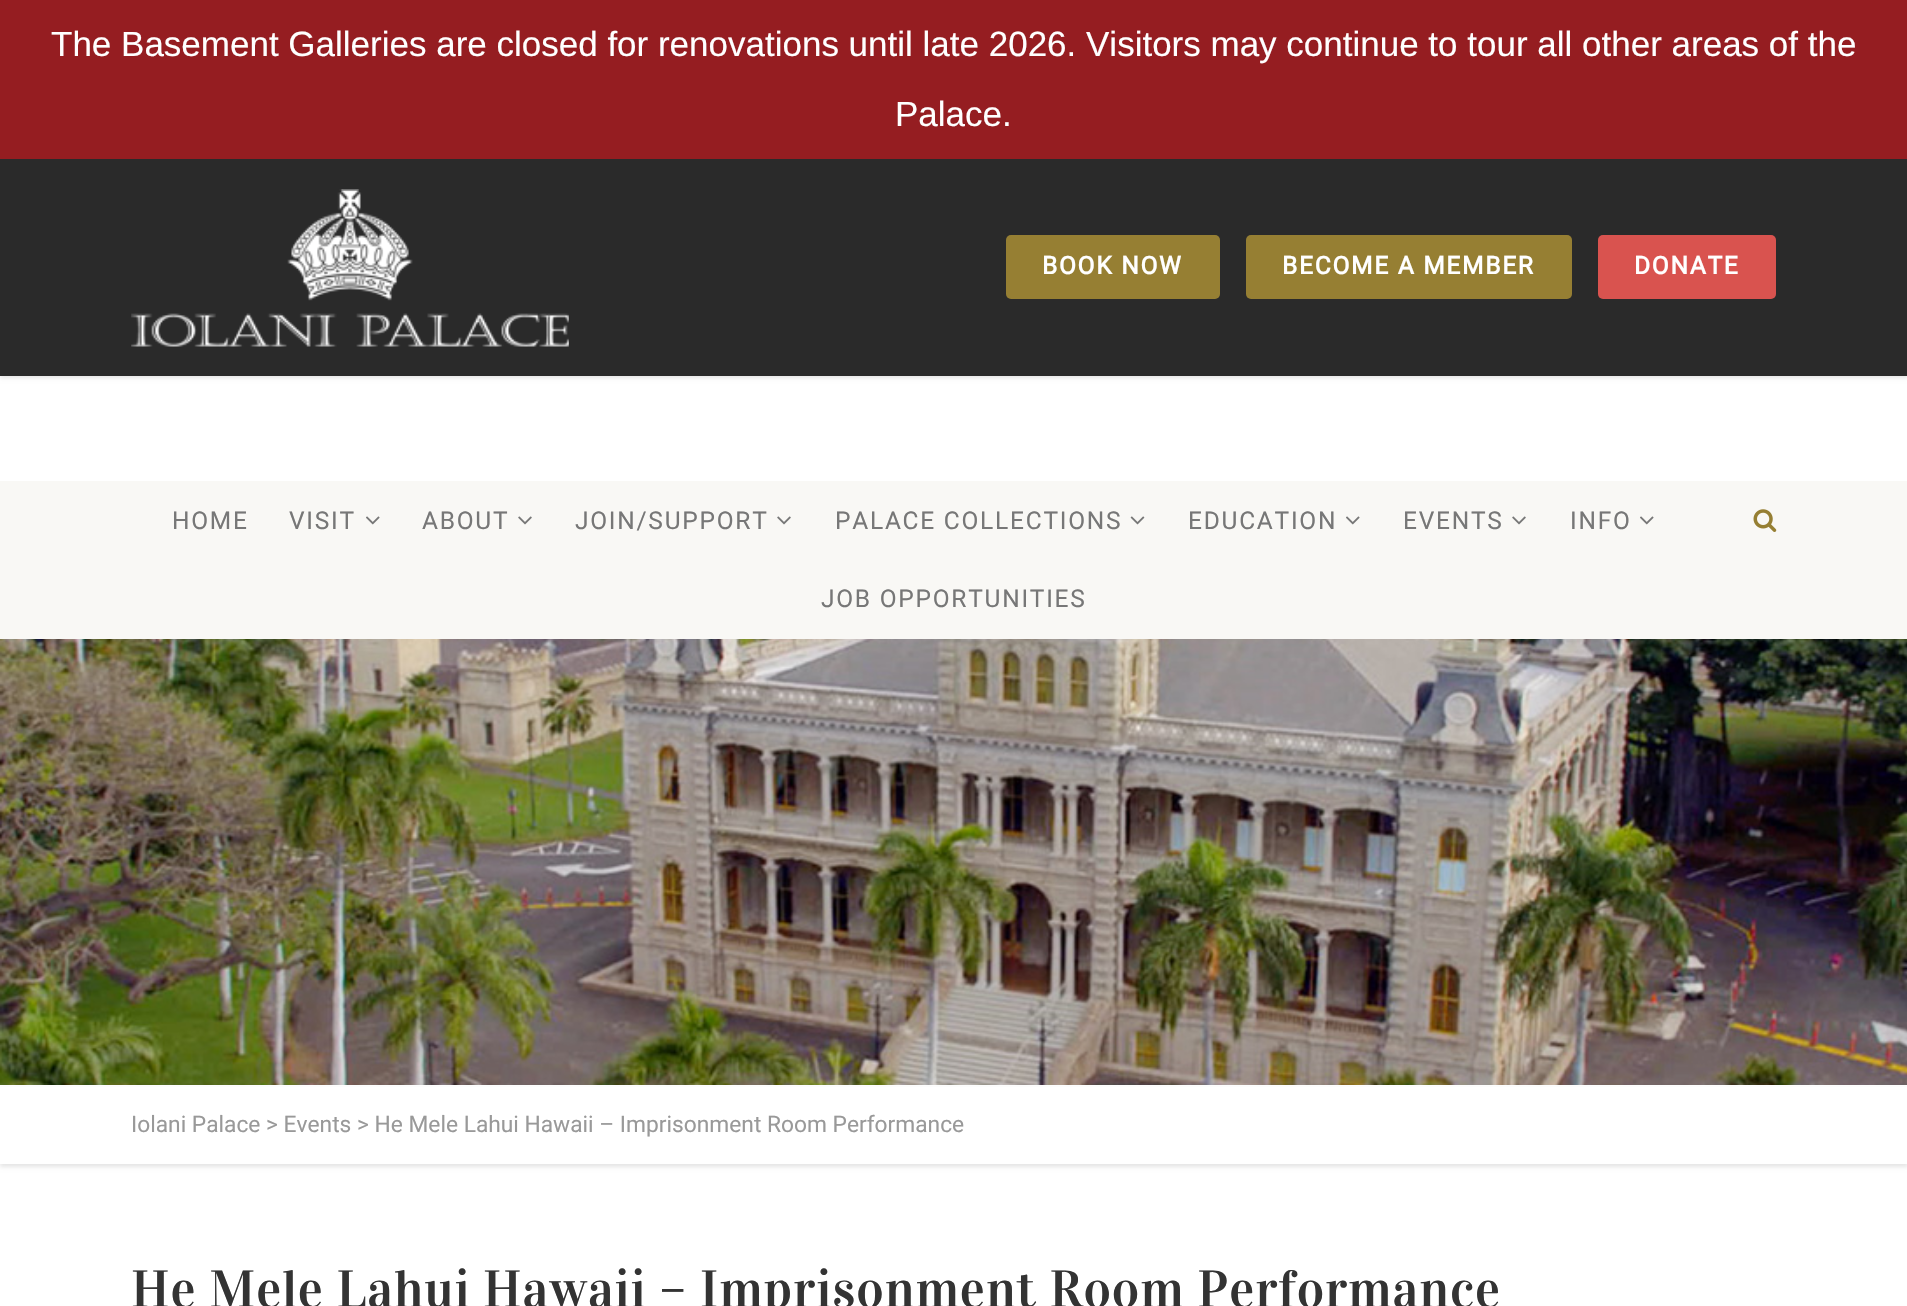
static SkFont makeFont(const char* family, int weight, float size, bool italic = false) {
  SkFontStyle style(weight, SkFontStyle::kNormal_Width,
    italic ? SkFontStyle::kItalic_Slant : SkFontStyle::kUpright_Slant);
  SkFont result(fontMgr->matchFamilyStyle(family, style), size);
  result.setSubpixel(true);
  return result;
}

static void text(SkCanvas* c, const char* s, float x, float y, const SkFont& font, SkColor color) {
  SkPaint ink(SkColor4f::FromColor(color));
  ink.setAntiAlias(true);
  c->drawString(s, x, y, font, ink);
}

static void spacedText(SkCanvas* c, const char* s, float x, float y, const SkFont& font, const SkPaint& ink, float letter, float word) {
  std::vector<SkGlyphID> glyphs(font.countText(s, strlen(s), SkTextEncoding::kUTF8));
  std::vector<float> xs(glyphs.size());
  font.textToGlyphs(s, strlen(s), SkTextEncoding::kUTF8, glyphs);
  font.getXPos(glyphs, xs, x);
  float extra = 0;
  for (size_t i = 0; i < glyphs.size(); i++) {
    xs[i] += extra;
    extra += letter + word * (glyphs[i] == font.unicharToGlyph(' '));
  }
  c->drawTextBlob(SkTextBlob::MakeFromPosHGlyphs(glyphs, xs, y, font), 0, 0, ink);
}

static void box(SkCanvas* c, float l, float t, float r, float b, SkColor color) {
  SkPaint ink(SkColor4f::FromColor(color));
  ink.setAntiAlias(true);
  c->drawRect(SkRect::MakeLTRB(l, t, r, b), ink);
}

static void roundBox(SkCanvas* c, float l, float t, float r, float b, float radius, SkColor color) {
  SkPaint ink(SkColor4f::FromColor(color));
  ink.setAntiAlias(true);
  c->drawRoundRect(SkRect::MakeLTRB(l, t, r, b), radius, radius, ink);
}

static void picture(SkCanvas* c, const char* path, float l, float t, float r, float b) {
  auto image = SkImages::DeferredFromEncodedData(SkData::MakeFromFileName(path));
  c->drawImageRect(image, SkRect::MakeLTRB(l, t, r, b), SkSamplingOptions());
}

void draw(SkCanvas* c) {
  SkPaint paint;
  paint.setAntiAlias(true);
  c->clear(0xffffffff);
  paint.setColor(0x1a000000);
  paint.setMaskFilter(SkMaskFilter::MakeBlur(kNormal_SkBlurStyle, 2));
  c->drawRect(SkRect::MakeLTRB(0, 161, 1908, 378), paint);
  paint.setMaskFilter(nullptr);
  box(c, 0, 0, 1907, 159, 0xff951d21);
  SkFont face1 = makeFont("Liberation Sans", 400, 35);
  text(c, "The Basement Galleries are closed for renovations until late 2026. Visitors may continue to tour all other areas of the", 51, 56, face1, 0xffffffff);
  text(c, "Palace.", 895, 126, face1, 0xffffffff);
  box(c, 0, 159, 1907, 376, 0xff2a2a2a);
  picture(c, "img_01.png", 131, 189, 569, 347);
  roundBox(c, 1006, 235, 1220, 299, 5, 0xff967f33);
  SkFont face2 = makeFont("Roboto", 700, 24.5f);
  paint.setColor(0xffffffff);
  spacedText(c, "BOOK NOW", 1042, 274, face2, paint, 1.75f, 0);
  roundBox(c, 1246, 235, 1572, 299, 5, 0xff967f33);
  spacedText(c, "BECOME A MEMBER", 1282, 274, face2, paint, 1.75f, 0);
  roundBox(c, 1598, 235, 1776, 299, 5, 0xffd9534f);
  spacedText(c, "DONATE", 1634, 274, face2, paint, 1.75f, 0);
  box(c, 0, 481, 1907, 639, 0xfff9f8f5);
  SkFont face3 = makeFont("Roboto", 400, 24.5f);
  paint.setColor(0xff777777);
  spacedText(c, "HOME", 172, 529, face3, paint, 1.75f, 0);
  spacedText(c, "VISIT", 289, 529, face3, paint, 1.75f, 0);
  picture(c, "img_02.png", 366, 516, 380, 525);
  spacedText(c, "ABOUT", 422, 529, face3, paint, 1.75f, 0);
  picture(c, "img_03.png", 518, 516, 532, 525);
  spacedText(c, "JOIN/SUPPORT", 575, 529, face3, paint, 1.75f, 0);
  picture(c, "img_03.png", 777, 516, 791, 525);
  spacedText(c, "PALACE COLLECTIONS", 835, 529, face3, paint, 1.75f, 0);
  picture(c, "img_04.png", 1130, 516, 1145, 525);
  spacedText(c, "EDUCATION", 1188, 529, face3, paint, 1.75f, 0);
  picture(c, "img_02.png", 1346, 516, 1360, 525);
  spacedText(c, "EVENTS", 1403, 529, face3, paint, 1.75f, 0);
  picture(c, "img_03.png", 1512, 516, 1526, 525);
  spacedText(c, "INFO", 1570, 529, face3, paint, 1.75f, 0);
  picture(c, "img_02.png", 1640, 516, 1654, 525);
  spacedText(c, "JOB OPPORTUNITIES", 821, 607, face3, paint, 1.75f, 0);
  picture(c, "img_05.png", 1753, 509, 1777, 532);
  paint.setColor(0xffe6e6e6);
  paint.setMaskFilter(SkMaskFilter::MakeBlur(kNormal_SkBlurStyle, 2));
  c->drawRect(SkRect::MakeLTRB(0, 1089, 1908, 1167), paint);
  paint.setMaskFilter(nullptr);
  picture(c, "img_06.png", 0, 639, 1907, 1085);
  box(c, 0, 1087, 1907, 1164, 0xffffffff);
  SkFont face4 = makeFont("Roboto", 400, 22.75f);
  text(c, "Iolani Palace > Events > He Mele Lahui Hawaii – Imprisonment Room Performance", 131, 1132, face4, 0xff999999);
  SkFont face5 = makeFont("Vidaloka", 400, 52.5f);
  paint.setColor(0xff333333);
  spacedText(c, "He Mele Lahui Hawaii – Imprisonment Room Performance", 131, 1307, face5, paint, 0.88f, 0);
}
